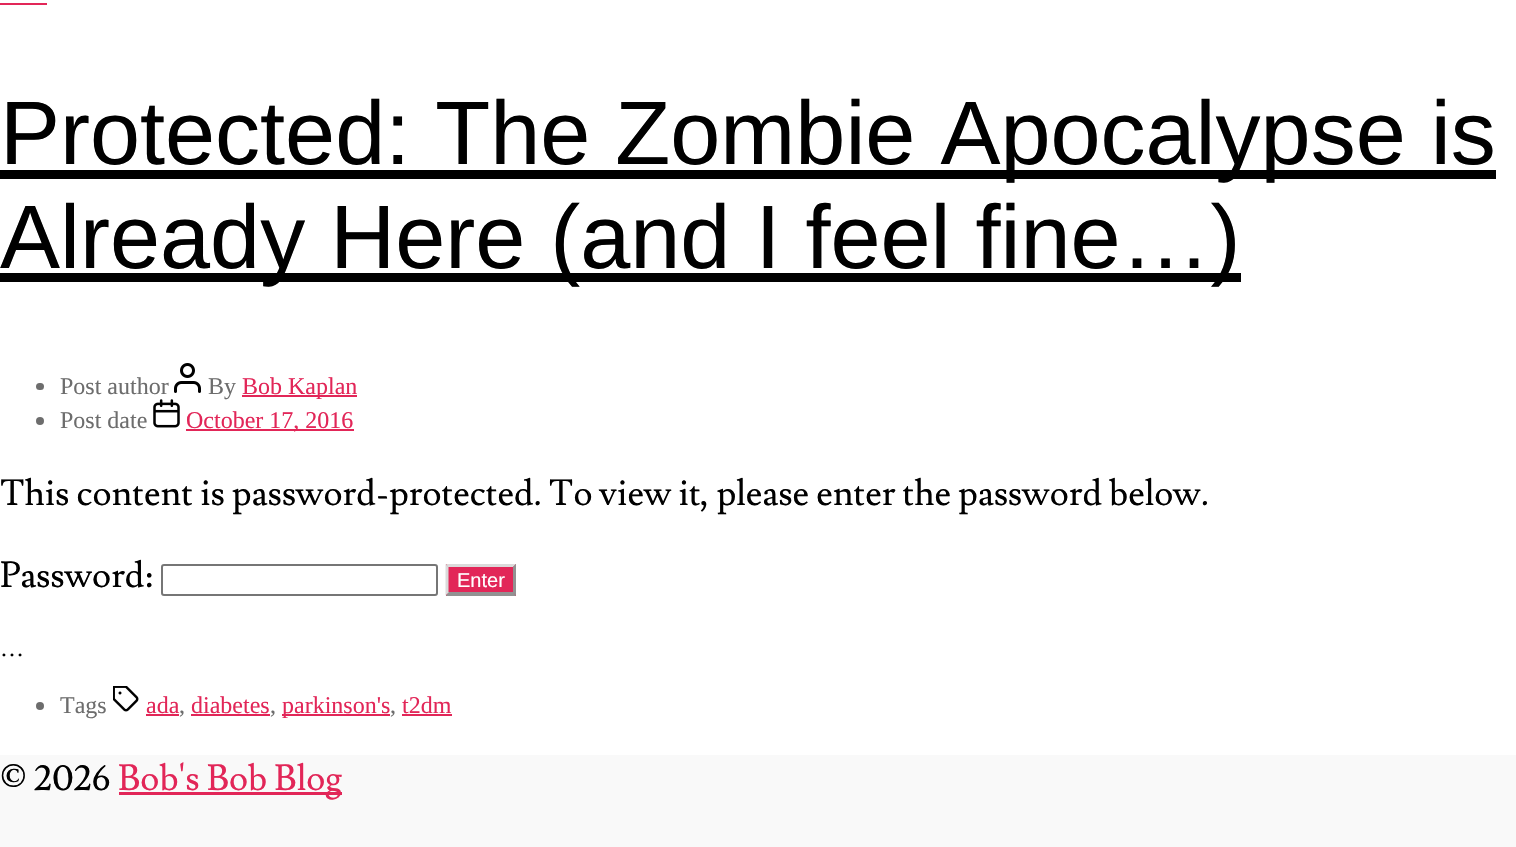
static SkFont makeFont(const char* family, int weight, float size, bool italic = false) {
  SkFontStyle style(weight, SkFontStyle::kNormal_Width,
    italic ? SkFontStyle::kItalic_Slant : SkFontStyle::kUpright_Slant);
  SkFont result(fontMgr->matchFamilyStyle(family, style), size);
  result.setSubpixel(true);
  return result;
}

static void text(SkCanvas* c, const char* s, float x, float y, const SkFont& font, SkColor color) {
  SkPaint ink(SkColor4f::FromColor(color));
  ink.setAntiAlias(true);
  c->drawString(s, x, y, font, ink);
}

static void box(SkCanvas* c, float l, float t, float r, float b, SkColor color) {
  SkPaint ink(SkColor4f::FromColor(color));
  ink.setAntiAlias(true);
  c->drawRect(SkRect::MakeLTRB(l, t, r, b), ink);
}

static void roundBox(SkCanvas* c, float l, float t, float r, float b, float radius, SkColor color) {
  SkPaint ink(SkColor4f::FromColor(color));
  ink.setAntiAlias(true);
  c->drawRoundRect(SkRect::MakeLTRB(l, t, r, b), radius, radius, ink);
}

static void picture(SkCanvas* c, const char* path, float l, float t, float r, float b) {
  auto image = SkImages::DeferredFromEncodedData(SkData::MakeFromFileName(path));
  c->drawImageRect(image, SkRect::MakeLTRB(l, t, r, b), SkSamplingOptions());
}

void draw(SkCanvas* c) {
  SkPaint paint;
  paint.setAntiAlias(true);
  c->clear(0xffffffff);
  box(c, 0, 3, 47, 5, 0xffe22658);
  box(c, 0, 170, 1496, 179, 0xff000000);
  SkFont face1 = makeFont("Liberation Sans", 400, 90);
  text(c, "Protected: The Zombie Apocalypse is", 0, 164, face1, 0xff000000);
  box(c, 0, 273, 1241, 282, 0xff000000);
  text(c, "Already Here (and I feel fine…)", 0, 268, face1, 0xff000000);
  roundBox(c, 36, 383, 44, 390, 3.5f, 0xff6d6d6d);
  SkFont face2 = makeFont("Liberation Serif", 400, 24);
  text(c, "Post author", 60, 394, face2, 0xff6d6d6d);
  picture(c, "img_01.png", 174, 363, 201, 393);
  text(c, "By", 208, 394, face2, 0xff6d6d6d);
  box(c, 242, 395, 357, 397, 0xffe22658);
  text(c, "Bob Kaplan", 242, 394, face2, 0xffe22658);
  paint.setColor(0xff6d6d6d);
  c->drawCircle(40, 421, 4, paint);
  text(c, "Post date", 60, 428, face2, 0xff6d6d6d);
  picture(c, "img_02.png", 153, 399, 180, 428);
  box(c, 186, 429, 354, 431, 0xffe22658);
  text(c, "October 17, 2016", 186, 428, face2, 0xffe22658);
  SkFont face3 = makeFont("Lusitana", 400, 36);
  text(c, "This content is password-protected. To view it, please enter the password below.", 0, 505, face3, 0xff000000);
  text(c, "Password:", 0, 587, face3, 0xff000000);
  paint.setStyle(SkPaint::kStroke_Style);
  paint.setStrokeWidth(2);
  paint.setColor(0xff767676);
  c->drawRoundRect(SkRect::MakeLTRB(162, 565, 437, 595), 2, 2, paint);
  box(c, 446, 564, 516, 596, 0xffe22658);
  paint.setStyle(SkPaint::kFill_Style);
  paint.setColor(0xffdbdbdb);
  c->drawPath(SkPathBuilder().moveTo(446, 564).lineTo(516, 564).lineTo(513, 567).lineTo(448, 567).close().detach(), paint);
  paint.setColor(0xff929292);
  c->drawPath(SkPathBuilder().moveTo(516, 564).lineTo(516, 595.5f).lineTo(513, 592.5f).lineTo(513, 567).close().detach(), paint);
  c->drawPath(SkPathBuilder().moveTo(516, 596).lineTo(446, 596).lineTo(448, 592).lineTo(513, 592).close().detach(), paint);
  paint.setColor(0xffdbdbdb);
  c->drawPath(SkPathBuilder().moveTo(445.5f, 595.5f).lineTo(445.5f, 564).lineTo(448.5f, 567).lineTo(448.5f, 592.5f).close().detach(), paint);
  SkFont face4 = makeFont("Liberation Sans", 400, 20);
  text(c, "Enter", 457, 587, face4, 0xffffffff);
  text(c, "…", 0, 656, face2, 0xff000000);
  paint.setColor(0xff6d6d6d);
  c->drawCircle(40, 706, 4, paint);
  text(c, "Tags", 60, 713, face2, 0xff6d6d6d);
  picture(c, "img_03.png", 113, 686, 139, 712);
  text(c, "ada", 146, 713, face2, 0xffe22658);
  text(c, "diabetes", 191, 713, face2, 0xffe22658);
  box(c, 282, 714, 390, 716, 0xffe22658);
  text(c, "parkinson's", 282, 713, face2, 0xffe22658);
  text(c, "t2dm", 402, 713, face2, 0xffe22658);
  text(c, ",", 179, 713, face2, 0xff6d6d6d);
  box(c, 146, 714, 179, 716, 0xffe22658);
  text(c, ",", 270, 713, face2, 0xff6d6d6d);
  box(c, 191, 714, 270, 716, 0xffe22658);
  text(c, ",", 390, 713, face2, 0xff6d6d6d);
  box(c, 402, 714, 452, 716, 0xffe22658);
  box(c, 0, 755, 1516, 847, 0xfff9f9f9);
  text(c, "© 2026", 0, 790, face3, 0xff000000);
  box(c, 119, 792, 342, 795, 0xffe22658);
  text(c, "Bob's Bob Blog", 118, 790, face3, 0xffe22658);
}
